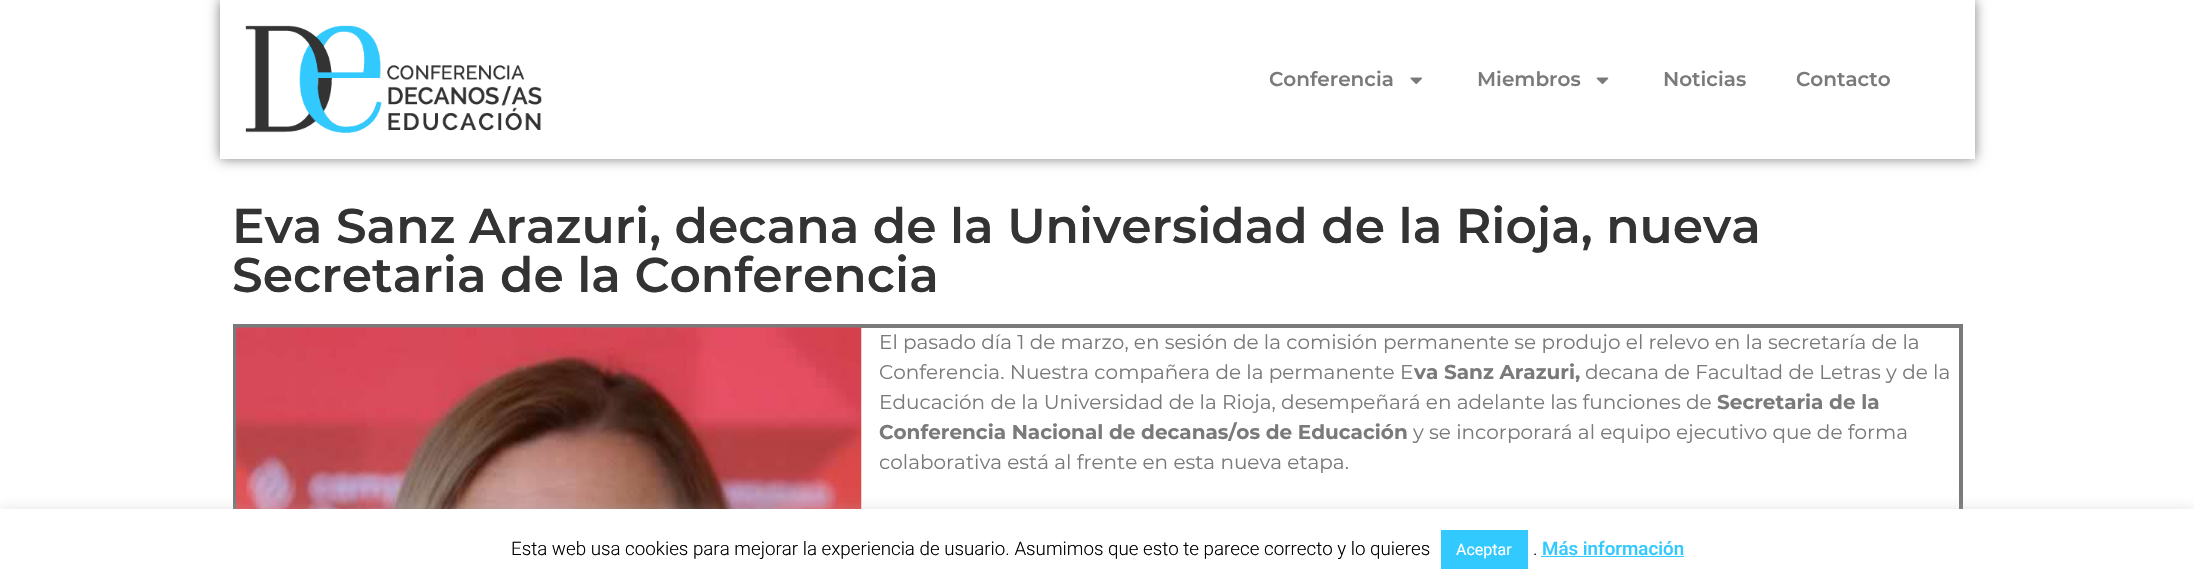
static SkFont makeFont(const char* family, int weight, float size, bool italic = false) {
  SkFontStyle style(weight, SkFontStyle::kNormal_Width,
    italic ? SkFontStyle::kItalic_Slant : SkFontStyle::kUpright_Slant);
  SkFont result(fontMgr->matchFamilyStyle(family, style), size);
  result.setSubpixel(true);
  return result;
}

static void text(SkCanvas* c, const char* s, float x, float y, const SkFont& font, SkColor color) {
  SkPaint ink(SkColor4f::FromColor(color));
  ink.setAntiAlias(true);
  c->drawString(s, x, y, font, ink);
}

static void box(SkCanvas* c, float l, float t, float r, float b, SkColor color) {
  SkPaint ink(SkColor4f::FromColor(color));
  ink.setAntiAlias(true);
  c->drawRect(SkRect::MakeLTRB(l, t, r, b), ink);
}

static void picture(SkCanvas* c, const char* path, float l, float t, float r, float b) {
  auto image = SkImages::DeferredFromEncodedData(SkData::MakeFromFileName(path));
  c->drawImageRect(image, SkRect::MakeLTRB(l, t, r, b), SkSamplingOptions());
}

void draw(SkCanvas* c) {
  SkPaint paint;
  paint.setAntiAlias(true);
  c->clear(0xffffffff);
  c->save();
  c->clipPath(SkPathBuilder(SkPathFillType::kEvenOdd).moveTo(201, 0).lineTo(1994, 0).lineTo(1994, 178).lineTo(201, 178).close().moveTo(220, 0).lineTo(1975, 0).lineTo(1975, 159).lineTo(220, 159).close().detach(), true);
  paint.setColor(0x80000000);
  paint.setMaskFilter(SkMaskFilter::MakeBlur(kNormal_SkBlurStyle, 6));
  c->drawRect(SkRect::MakeLTRB(220, 0, 1975, 159), paint);
  paint.setMaskFilter(nullptr);
  c->restore();
  picture(c, "img_01.png", 245, 25, 542, 133);
  SkFont face1 = makeFont("Montserrat", 600, 20);
  text(c, "Conferencia", 1269, 86, face1, 0xff7a7a7a);
  picture(c, "img_02.png", 1410, 77, 1422, 84);
  text(c, "Miembros", 1477, 86, face1, 0xff7a7a7a);
  picture(c, "img_03.png", 1596, 77, 1609, 84);
  text(c, "Noticias", 1663, 86, face1, 0xff7a7a7a);
  text(c, "Contacto", 1796, 86, face1, 0xff7a7a7a);
  SkFont face2 = makeFont("Montserrat", 600, 48.75f);
  text(c, "Eva Sanz Arazuri, decana de la Universidad de la Rioja, nueva", 232, 243, face2, 0xff333333);
  text(c, "Secretaria de la Conferencia", 232, 292, face2, 0xff333333);
  paint.setStyle(SkPaint::kStroke_Style);
  paint.setStrokeWidth(4);
  paint.setColor(0xff7a7a7a);
  c->drawRect(SkRect::MakeLTRB(235, 326, 1961, 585), paint);
  picture(c, "img_04.png", 236, 327, 862, 509);
  SkFont face3 = makeFont("Montserrat", 400, 20);
  text(c, "El pasado día 1 de marzo, en sesión de la comisión permanente se produjo el relevo en la secretaría de la", 879, 349, face3, 0xff7a7a7a);
  text(c, "Conferencia. Nuestra compañera de la permanente E", 879, 379, face3, 0xff7a7a7a);
  SkFont face4 = makeFont("Montserrat", 700, 20);
  text(c, "va Sanz Arazuri,", 1414, 379, face4, 0xff7a7a7a);
  text(c, "decana de Facultad de Letras y de la", 1585, 379, face3, 0xff7a7a7a);
  text(c, "Educación de la Universidad de la Rioja, desempeñará en adelante las funciones de", 879, 409, face3, 0xff7a7a7a);
  text(c, "Secretaria de la", 1717, 409, face4, 0xff7a7a7a);
  text(c, "Conferencia Nacional de decanas/os de Educación", 879, 439, face4, 0xff7a7a7a);
  text(c, "y se incorporará al equipo ejecutivo que de forma", 1413, 439, face3, 0xff7a7a7a);
  text(c, "colaborativa está al frente en esta nueva etapa.", 879, 469, face3, 0xff7a7a7a);
  paint.setStyle(SkPaint::kFill_Style);
  paint.setColor(0x4dacabab);
  paint.setMaskFilter(SkMaskFilter::MakeBlur(kNormal_SkBlurStyle, 6));
  c->drawRect(SkRect::MakeLTRB(0, 508, 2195, 583), paint);
  paint.setMaskFilter(nullptr);
  box(c, 0, 509, 2194, 583, 0xffffffff);
  SkFont face5 = makeFont("Roboto", 300, 18.75f);
  text(c, "Esta web usa cookies para mejorar la experiencia de usuario. Asumimos que esto te parece correcto y lo quieres", 511, 555, face5, 0xff000000);
  box(c, 1441, 530, 1528, 569, 0xff32c9ff);
  SkFont face6 = makeFont("Roboto", 400, 16);
  text(c, "Aceptar", 1456, 555, face6, 0xffffffff);
  text(c, ".", 1533, 555, face5, 0xff000000);
  SkFont face7 = makeFont("Roboto", 500, 18.75f);
  text(c, "Más información", 1542, 555, face7, 0xff32c9ff);
  box(c, 1541, 556, 1684, 557, 0xff32c9ff);
}
